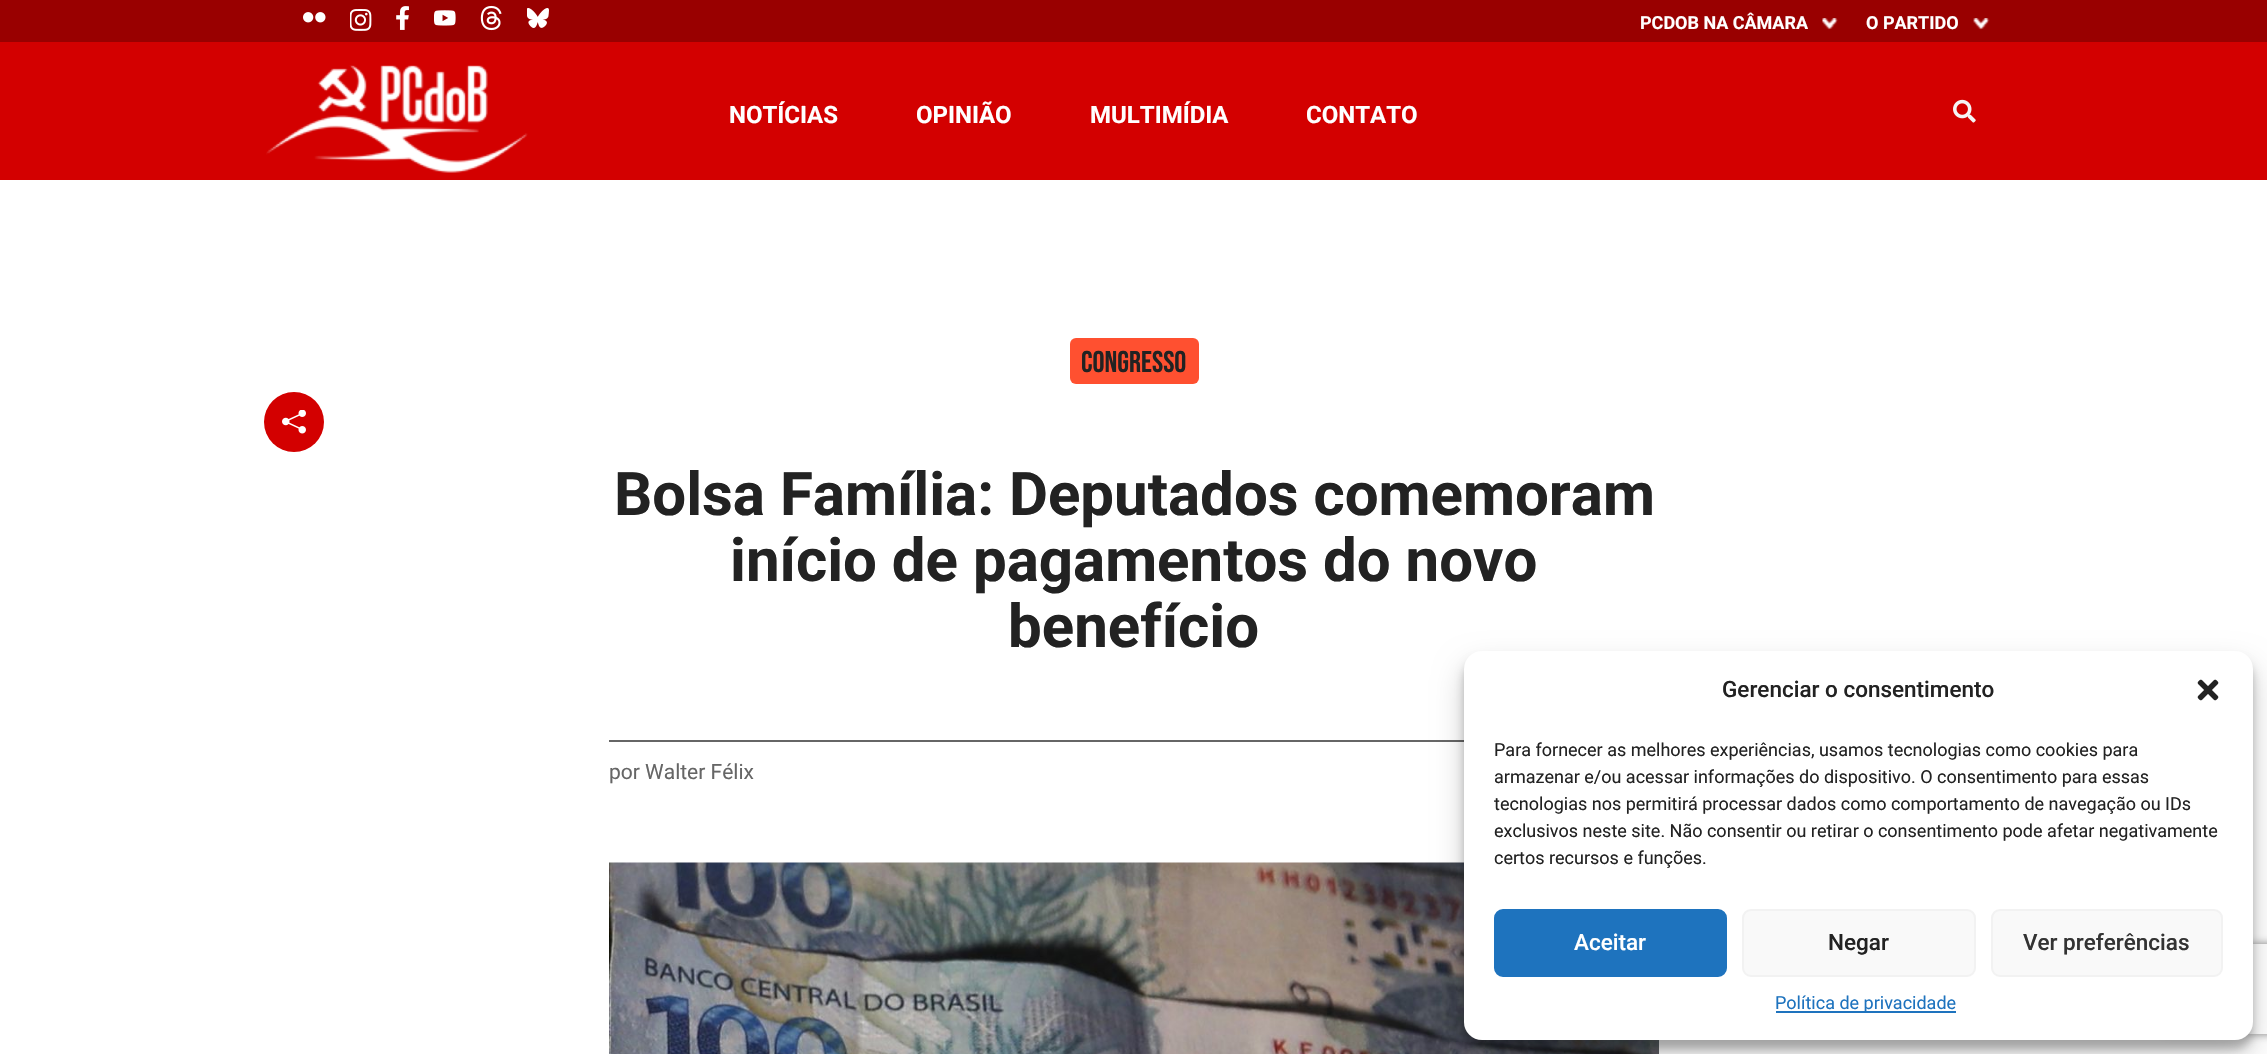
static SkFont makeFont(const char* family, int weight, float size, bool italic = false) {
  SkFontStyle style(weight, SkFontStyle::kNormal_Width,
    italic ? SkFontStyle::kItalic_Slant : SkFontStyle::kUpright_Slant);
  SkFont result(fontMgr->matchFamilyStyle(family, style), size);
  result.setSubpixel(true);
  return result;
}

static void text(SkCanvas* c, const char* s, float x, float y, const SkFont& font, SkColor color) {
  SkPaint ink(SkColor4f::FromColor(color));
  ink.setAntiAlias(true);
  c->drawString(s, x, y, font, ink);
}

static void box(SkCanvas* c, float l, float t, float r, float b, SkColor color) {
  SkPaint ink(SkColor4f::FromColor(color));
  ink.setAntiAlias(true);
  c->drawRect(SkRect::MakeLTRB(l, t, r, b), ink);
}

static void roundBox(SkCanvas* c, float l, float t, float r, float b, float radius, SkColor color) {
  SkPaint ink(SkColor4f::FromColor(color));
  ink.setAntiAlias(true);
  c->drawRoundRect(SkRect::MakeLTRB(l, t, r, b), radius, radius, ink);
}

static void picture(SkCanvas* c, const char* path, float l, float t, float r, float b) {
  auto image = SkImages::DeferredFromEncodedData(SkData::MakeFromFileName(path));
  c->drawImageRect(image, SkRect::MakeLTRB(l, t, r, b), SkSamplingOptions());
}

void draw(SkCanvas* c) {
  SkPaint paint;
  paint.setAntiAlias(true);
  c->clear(0xffffffff);
  box(c, 0, 42, 2267, 180, 0xffd30000);
  box(c, 0, 0, 2267, 42, 0xff990000);
  picture(c, "img_01.png", 303, 12, 326, 23);
  picture(c, "img_02.png", 350, 9, 372, 31);
  picture(c, "img_03.png", 396, 6, 409, 30);
  picture(c, "img_04.png", 434, 10, 456, 26);
  picture(c, "img_05.png", 480, 5, 502, 31);
  picture(c, "img_06.png", 527, 8, 549, 28);
  SkFont face1 = makeFont("Roboto", 700, 18);
  text(c, "PCDOB NA CÂMARA", 1640, 29, face1, 0xffffffff);
  picture(c, "img_07.png", 1822, 18, 1838, 30);
  text(c, "O PARTIDO", 1866, 29, face1, 0xffffffff);
  picture(c, "img_08.png", 1973, 18, 1990, 30);
  picture(c, "img_09.png", 266, 65, 528, 173);
  SkFont face2 = makeFont("Roboto", 700, 24);
  text(c, "NOTÍCIAS", 729, 123, face2, 0xffffffff);
  text(c, "OPINIÃO", 916, 123, face2, 0xffffffff);
  text(c, "MULTIMÍDIA", 1090, 123, face2, 0xffffffff);
  text(c, "CONTATO", 1306, 123, face2, 0xffffffff);
  picture(c, "img_10.png", 1953, 99, 1976, 123);
  paint.setColor(0xffd30000);
  c->drawCircle(294, 422, 30, paint);
  picture(c, "img_11.png", 282, 410, 306, 434);
  roundBox(c, 1070, 338, 1199, 384, 6, 0xffff5030);
  SkFont face3 = makeFont("Bebas Neue", 400, 30);
  text(c, "CONGRESSO", 1081, 372, face3, 0xff222222);
  SkFont face4 = makeFont("Roboto", 700, 60);
  text(c, "Bolsa Família: Deputados comemoram", 614, 515, face4, 0xff222222);
  text(c, "início de pagamentos do novo", 730, 581, face4, 0xff222222);
  text(c, "benefício", 1008, 647, face4, 0xff222222);
  box(c, 609, 740, 1464, 742, 0xff666666);
  SkFont face5 = makeFont("Roboto", 400, 21);
  text(c, "por Walter Félix", 609, 779, face5, 0xff666666);
  picture(c, "img_12.png", 609, 862, 1659, 1054);
  paint.setColor(0x3b000000);
  paint.setMaskFilter(SkMaskFilter::MakeBlur(kNormal_SkBlurStyle, 4.5f));
  c->drawRoundRect(SkRect::MakeLTRB(1464, 660, 2253, 1049), 18, 18, paint);
  paint.setMaskFilter(nullptr);
  paint.setColor(0x30000000);
  paint.setMaskFilter(SkMaskFilter::MakeBlur(kNormal_SkBlurStyle, 15));
  c->drawRoundRect(SkRect::MakeLTRB(1464, 666, 2253, 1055), 18, 18, paint);
  paint.setMaskFilter(nullptr);
  c->save();
  c->clipPath(SkPathBuilder(SkPathFillType::kEvenOdd).moveTo(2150, 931).lineTo(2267, 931).lineTo(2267, 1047).lineTo(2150, 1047).close().moveTo(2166, 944).lineTo(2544, 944).cubicTo(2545.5f, 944, 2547, 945.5f, 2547, 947).lineTo(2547, 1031).cubicTo(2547, 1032.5f, 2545.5f, 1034, 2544, 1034).lineTo(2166, 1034).cubicTo(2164.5f, 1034, 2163, 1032.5f, 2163, 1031).lineTo(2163, 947).cubicTo(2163, 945.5f, 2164.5f, 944, 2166, 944).close().detach(), true);
  paint.setColor(0xff808080);
  paint.setMaskFilter(SkMaskFilter::MakeBlur(kNormal_SkBlurStyle, 4));
  c->drawRoundRect(SkRect::MakeLTRB(2163, 944, 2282, 1034), 3, 3, paint);
  paint.setMaskFilter(nullptr);
  c->restore();
  roundBox(c, 1464, 651, 2253, 1040, 18, 0xffffffff);
  SkFont face6 = makeFont("Roboto", 500, 22.5f);
  text(c, "Gerenciar o consentimento", 1722, 697, face6, 0xff222222);
  picture(c, "img_13.png", 2197, 679, 2219, 701);
  SkFont face7 = makeFont("Roboto", 400, 18);
  text(c, "Para fornecer as melhores experiências, usamos tecnologias como cookies para", 1494, 756, face7, 0xff222222);
  text(c, "armazenar e/ou acessar informações do dispositivo. O consentimento para essas", 1494, 783, face7, 0xff222222);
  text(c, "tecnologias nos permitirá processar dados como comportamento de navegação ou IDs", 1494, 810, face7, 0xff222222);
  text(c, "exclusivos neste site. Não consentir ou retirar o consentimento pode afetar negativamente", 1494, 837, face7, 0xff222222);
  text(c, "certos recursos e funções.", 1494, 864, face7, 0xff222222);
  paint.setColor(0xff1e73be);
  c->drawRoundRect(SkRect::MakeLTRB(1495, 910, 1726, 976), 8, 8, paint);
  paint.setStyle(SkPaint::kStroke_Style);
  paint.setStrokeWidth(2);
  c->drawRoundRect(SkRect::MakeLTRB(1495, 910, 1726, 976), 8, 8, paint);
  text(c, "Aceitar", 1574, 950, face6, 0xffffffff);
  paint.setStyle(SkPaint::kFill_Style);
  paint.setColor(0xfff9f9f9);
  c->drawRoundRect(SkRect::MakeLTRB(1743, 910, 1975, 976), 8, 8, paint);
  paint.setStyle(SkPaint::kStroke_Style);
  paint.setColor(0xfff2f2f2);
  c->drawRoundRect(SkRect::MakeLTRB(1743, 910, 1975, 976), 8, 8, paint);
  text(c, "Negar", 1828, 950, face6, 0xff222222);
  paint.setStyle(SkPaint::kFill_Style);
  paint.setColor(0xfff9f9f9);
  c->drawRoundRect(SkRect::MakeLTRB(1992, 910, 2222, 976), 8, 8, paint);
  paint.setStyle(SkPaint::kStroke_Style);
  paint.setColor(0xfff2f2f2);
  c->drawRoundRect(SkRect::MakeLTRB(1992, 910, 2222, 976), 8, 8, paint);
  text(c, "Ver preferências", 2023, 950, face6, 0xff333333);
  box(c, 1776, 1011, 1956, 1013, 0xff1e73be);
  text(c, "Política de privacidade", 1775, 1009, face7, 0xff1e73be);
}
